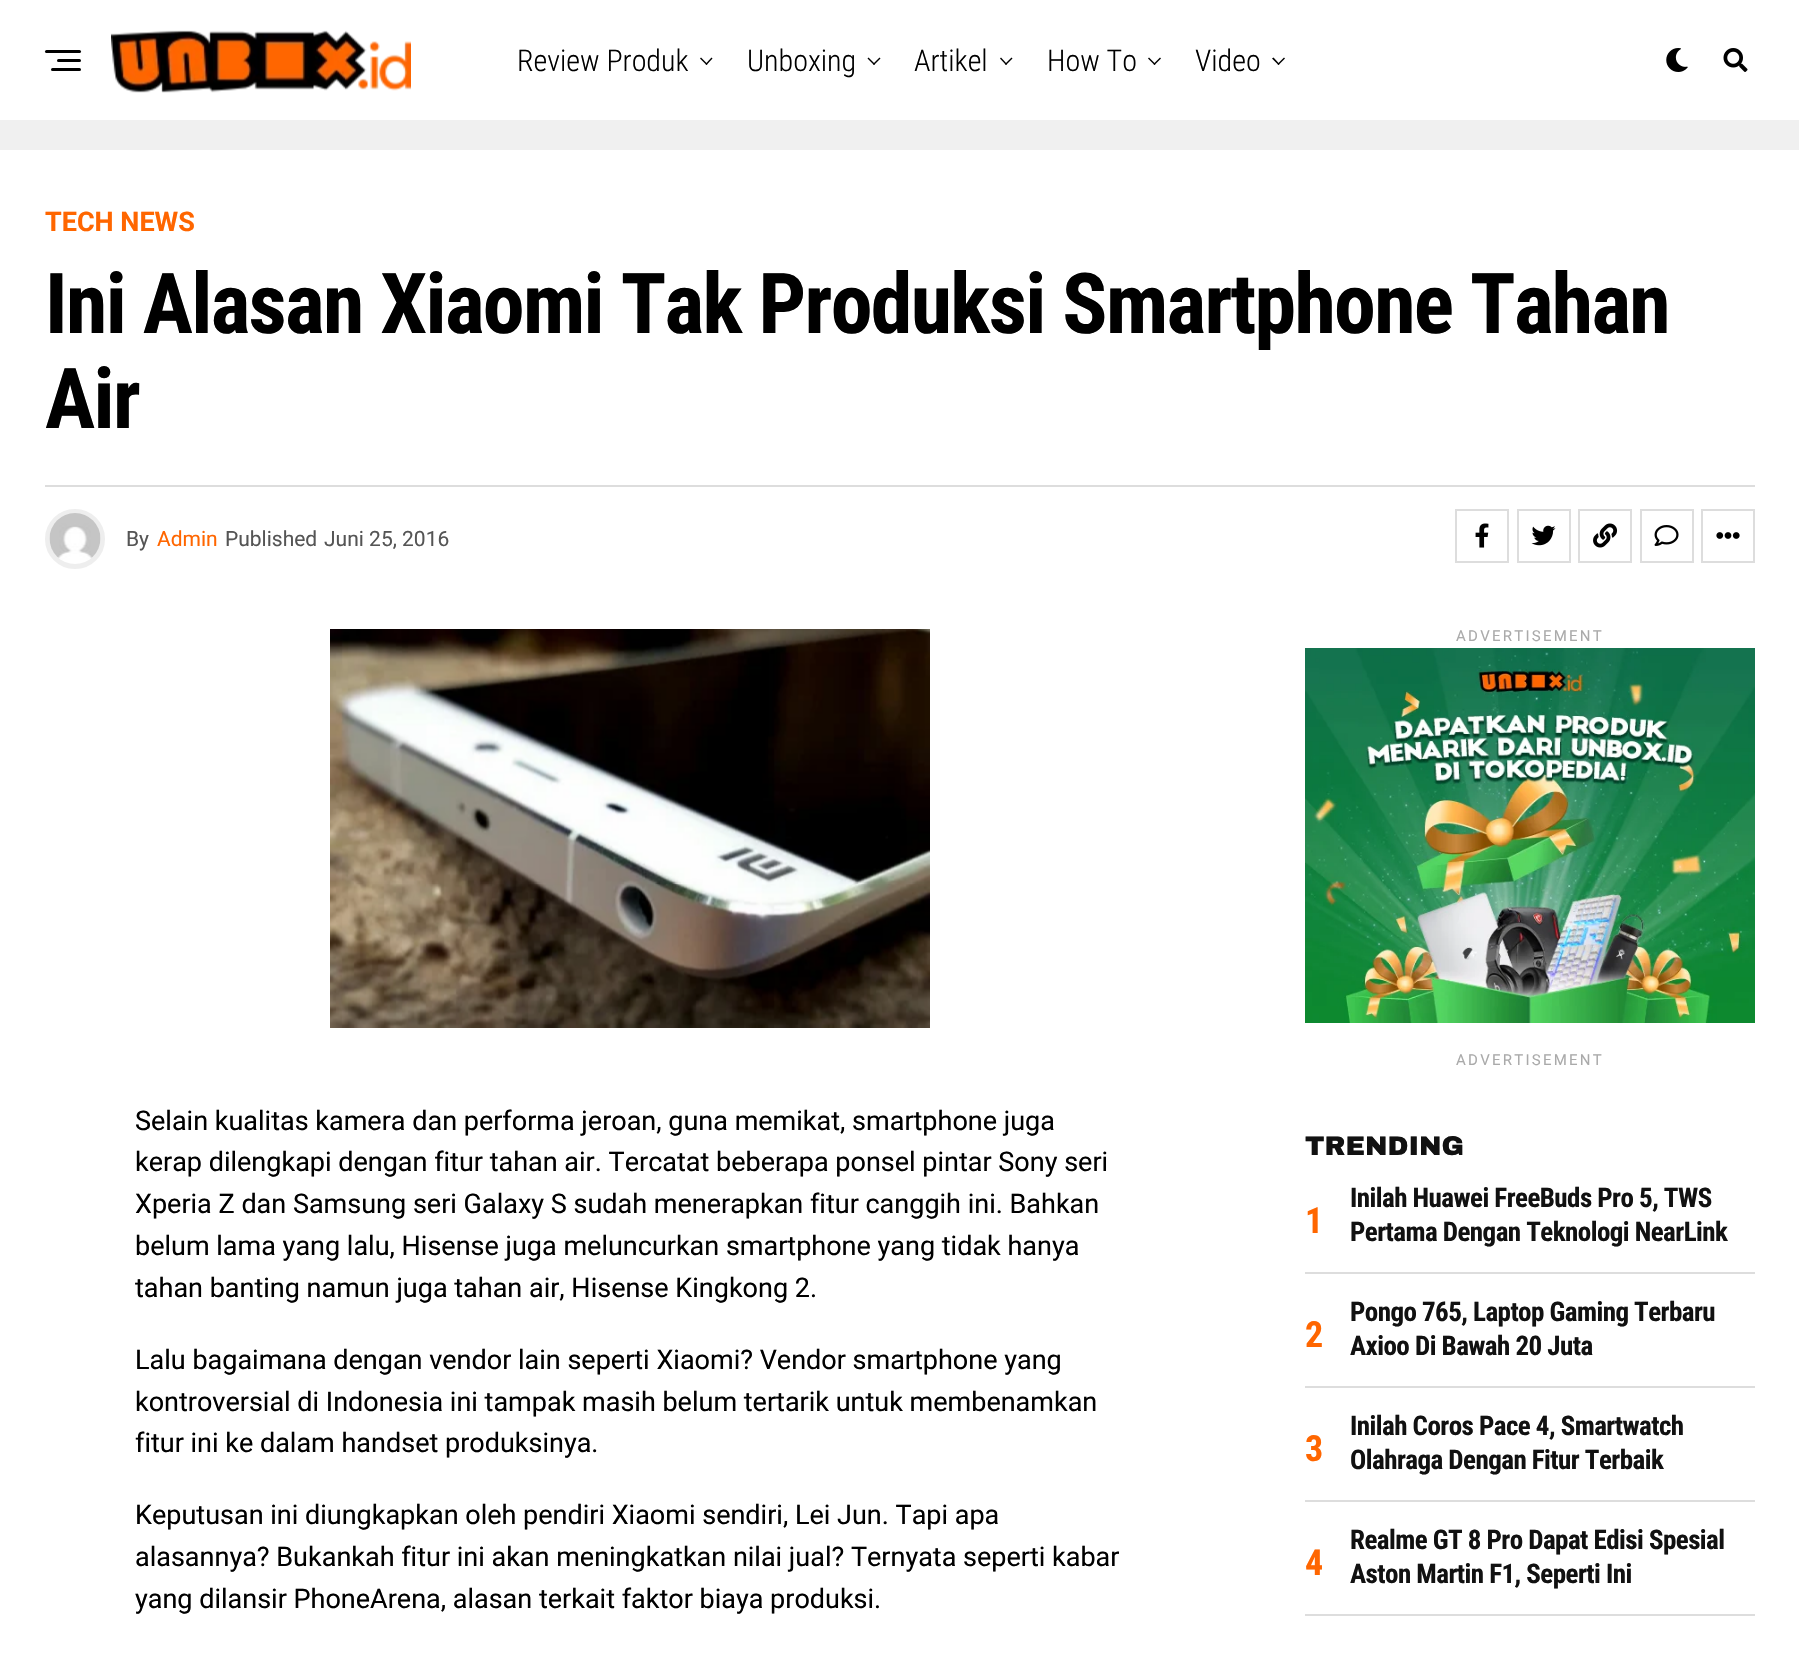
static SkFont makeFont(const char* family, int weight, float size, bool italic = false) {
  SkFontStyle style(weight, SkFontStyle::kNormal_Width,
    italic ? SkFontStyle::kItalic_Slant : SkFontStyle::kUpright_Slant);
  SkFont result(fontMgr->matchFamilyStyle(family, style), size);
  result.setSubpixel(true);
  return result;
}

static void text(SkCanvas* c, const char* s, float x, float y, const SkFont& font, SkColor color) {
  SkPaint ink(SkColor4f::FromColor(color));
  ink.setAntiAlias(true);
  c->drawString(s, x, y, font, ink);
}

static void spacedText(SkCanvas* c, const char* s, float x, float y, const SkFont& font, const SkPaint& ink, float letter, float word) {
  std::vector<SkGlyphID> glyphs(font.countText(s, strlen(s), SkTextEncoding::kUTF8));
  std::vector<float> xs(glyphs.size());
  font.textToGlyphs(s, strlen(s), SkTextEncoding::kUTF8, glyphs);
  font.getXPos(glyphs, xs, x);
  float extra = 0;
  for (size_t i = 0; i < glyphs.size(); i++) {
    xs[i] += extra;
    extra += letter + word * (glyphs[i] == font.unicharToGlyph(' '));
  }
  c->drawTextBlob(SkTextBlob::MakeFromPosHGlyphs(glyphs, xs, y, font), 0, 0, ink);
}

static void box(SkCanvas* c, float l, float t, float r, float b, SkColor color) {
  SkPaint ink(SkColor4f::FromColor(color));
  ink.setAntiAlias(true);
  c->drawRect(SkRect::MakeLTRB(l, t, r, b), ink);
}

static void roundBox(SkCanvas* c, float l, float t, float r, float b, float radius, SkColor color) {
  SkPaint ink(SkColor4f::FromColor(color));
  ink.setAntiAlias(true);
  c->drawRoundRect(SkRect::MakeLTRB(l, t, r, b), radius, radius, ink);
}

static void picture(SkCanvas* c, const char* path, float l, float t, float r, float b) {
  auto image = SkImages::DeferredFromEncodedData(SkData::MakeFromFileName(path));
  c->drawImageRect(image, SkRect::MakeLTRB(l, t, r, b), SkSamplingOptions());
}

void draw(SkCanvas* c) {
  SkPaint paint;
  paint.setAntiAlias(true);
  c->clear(0xfff0f0f0);
  box(c, 0, 0, 1799, 120, 0xffffffff);
  roundBox(c, 45, 50, 81, 53, 1.5f, 0xff000000);
  roundBox(c, 57, 59, 81, 62, 1.5f, 0xff000000);
  roundBox(c, 51, 68, 81, 71, 1.5f, 0xff000000);
  picture(c, "img_01.png", 111, 30, 411, 93);
  SkFont face1 = makeFont("Roboto Condensed", 300, 30);
  text(c, "Review Produk", 517, 71, face1, 0xff000000);
  paint.setColor(0xff000000);
  c->drawPath(SkPathBuilder().moveTo(711.5f, 57.5f).lineTo(712.5f, 58.5f).lineTo(706.5f, 65).lineTo(705.5f, 64).close().detach(), paint);
  c->drawPath(SkPathBuilder().moveTo(701, 57.5f).lineTo(707.5f, 64).lineTo(706.5f, 65).lineTo(700, 58.5f).close().detach(), paint);
  text(c, "Unboxing", 747, 71, face1, 0xff000000);
  c->drawPath(SkPathBuilder().moveTo(879.5f, 57.5f).lineTo(880.5f, 58.5f).lineTo(874, 65).lineTo(873, 64).close().detach(), paint);
  c->drawPath(SkPathBuilder().moveTo(868.5f, 57.5f).lineTo(875, 64).lineTo(874, 65).lineTo(867.5f, 58.5f).close().detach(), paint);
  text(c, "Artikel", 914, 71, face1, 0xff000000);
  c->drawPath(SkPathBuilder().moveTo(1011.5f, 57.5f).lineTo(1012.5f, 58.5f).lineTo(1006, 65).lineTo(1005, 64).close().detach(), paint);
  c->drawPath(SkPathBuilder().moveTo(1001, 57.5f).lineTo(1007, 64).lineTo(1006, 65).lineTo(1000, 58.5f).close().detach(), paint);
  text(c, "How To", 1047, 71, face1, 0xff000000);
  c->drawPath(SkPathBuilder().moveTo(1160, 57.5f).lineTo(1161, 58.5f).lineTo(1154.5f, 65).lineTo(1153.5f, 64).close().detach(), paint);
  c->drawPath(SkPathBuilder().moveTo(1149, 57.5f).lineTo(1155.5f, 64).lineTo(1154.5f, 65).lineTo(1148, 58.5f).close().detach(), paint);
  text(c, "Video", 1195, 71, face1, 0xff000000);
  c->drawPath(SkPathBuilder().moveTo(1284, 57.5f).lineTo(1285, 58.5f).lineTo(1278.5f, 65).lineTo(1277.5f, 64).close().detach(), paint);
  c->drawPath(SkPathBuilder().moveTo(1273.5f, 57.5f).lineTo(1279.5f, 64).lineTo(1278.5f, 65).lineTo(1272, 58.5f).close().detach(), paint);
  picture(c, "img_02.png", 1666, 48, 1688, 72);
  picture(c, "img_03.png", 1723, 48, 1748, 72);
  box(c, 0, 150, 1799, 1655, 0xffffffff);
  SkFont face2 = makeFont("Roboto", 700, 27);
  text(c, "TECH NEWS", 45, 231, face2, 0xffff6600);
  SkFont face3 = makeFont("Roboto Condensed", 700, 84);
  spacedText(c, "Ini Alasan Xiaomi Tak Produksi Smartphone Tahan", 45, 333, face3, paint, -1.7f, 0);
  spacedText(c, "Air", 45, 428, face3, paint, -1.7f, 0);
  box(c, 45, 485, 1755, 487, 0xffdddddd);
  paint.setStyle(SkPaint::kStroke_Style);
  paint.setStrokeWidth(5);
  paint.setColor(0xffeeeeee);
  c->drawCircle(75, 539, 27.5f, paint);
  picture(c, "img_04.png", 49, 513, 101, 560);
  SkFont face4 = makeFont("Roboto", 400, 21);
  text(c, "By", 126, 546, face4, 0xff555555);
  text(c, "Admin", 157, 546, face4, 0xffff6600);
  text(c, "Published", 225, 546, face4, 0xff555555);
  text(c, "Juni 25, 2016", 324, 546, face4, 0xff555555);
  paint.setStrokeWidth(2);
  paint.setColor(0xffdddddd);
  c->drawRect(SkRect::MakeLTRB(1456, 510, 1508, 562), paint);
  picture(c, "img_05.png", 1475, 523, 1489, 548);
  c->drawRect(SkRect::MakeLTRB(1518, 510, 1570, 562), paint);
  picture(c, "img_06.png", 1531, 525, 1556, 546);
  c->drawRect(SkRect::MakeLTRB(1579, 510, 1631, 562), paint);
  picture(c, "img_07.png", 1593, 523, 1618, 548);
  c->drawRect(SkRect::MakeLTRB(1641, 510, 1693, 562), paint);
  picture(c, "img_08.png", 1654, 525, 1679, 546);
  c->drawRect(SkRect::MakeLTRB(1702, 510, 1754, 562), paint);
  picture(c, "img_09.png", 1716, 532, 1740, 539);
  picture(c, "img_10.png", 330, 629, 930, 1028);
  SkFont face5 = makeFont("Roboto", 400, 27);
  text(c, "Selain kualitas kamera dan performa jeroan, guna memikat, smartphone juga", 135, 1130, face5, 0xff000000);
  text(c, "kerap dilengkapi dengan fitur tahan air. Tercatat beberapa ponsel pintar Sony seri", 135, 1171, face5, 0xff000000);
  text(c, "Xperia Z dan Samsung seri Galaxy S sudah menerapkan fitur canggih ini. Bahkan", 135, 1213, face5, 0xff000000);
  text(c, "belum lama yang lalu, Hisense juga meluncurkan smartphone yang tidak hanya", 135, 1255, face5, 0xff000000);
  text(c, "tahan banting namun juga tahan air, Hisense Kingkong 2.", 135, 1297, face5, 0xff000000);
  text(c, "Lalu bagaimana dengan vendor lain seperti Xiaomi? Vendor smartphone yang", 135, 1369, face5, 0xff000000);
  text(c, "kontroversial di Indonesia ini tampak masih belum tertarik untuk membenamkan", 135, 1411, face5, 0xff000000);
  text(c, "fitur ini ke dalam handset produksinya.", 135, 1452, face5, 0xff000000);
  text(c, "Keputusan ini diungkapkan oleh pendiri Xiaomi sendiri, Lei Jun. Tapi apa", 135, 1524, face5, 0xff000000);
  text(c, "alasannya? Bukankah fitur ini akan meningkatkan nilai jual? Ternyata seperti kabar", 135, 1566, face5, 0xff000000);
  text(c, "yang dilansir PhoneArena, alasan terkait faktor biaya produksi.", 135, 1608, face5, 0xff000000);
  SkFont face6 = makeFont("Roboto", 400, 15);
  paint.setStyle(SkPaint::kFill_Style);
  paint.setColor(0xffaaaaaa);
  spacedText(c, "ADVERTISEMENT", 1456, 641, face6, paint, 2.25f, 0);
  picture(c, "img_11.png", 1305, 648, 1755, 1023);
  spacedText(c, "ADVERTISEMENT", 1456, 1065, face6, paint, 2.25f, 0);
  SkFont face7 = makeFont("Archivo Black", 900, 27);
  text(c, "TRENDING", 1305, 1155, face7, 0xff111111);
  box(c, 1305, 1272, 1755, 1274, 0xffdddddd);
  SkFont face8 = makeFont("Roboto Condensed", 700, 36);
  text(c, "1", 1305, 1233, face8, 0xffff6600);
  SkFont face9 = makeFont("Roboto Condensed", 700, 27);
  paint.setColor(0xff111111);
  spacedText(c, "Inilah Huawei FreeBuds Pro 5, TWS", 1350, 1207, face9, paint, -0.55f, 0);
  spacedText(c, "Pertama Dengan Teknologi NearLink", 1350, 1241, face9, paint, -0.55f, 0);
  box(c, 1305, 1386, 1755, 1388, 0xffdddddd);
  text(c, "2", 1305, 1347, face8, 0xffff6600);
  spacedText(c, "Pongo 765, Laptop Gaming Terbaru", 1350, 1321, face9, paint, -0.55f, 0);
  spacedText(c, "Axioo Di Bawah 20 Juta", 1350, 1355, face9, paint, -0.55f, 0);
  box(c, 1305, 1500, 1755, 1502, 0xffdddddd);
  text(c, "3", 1305, 1461, face8, 0xffff6600);
  spacedText(c, "Inilah Coros Pace 4, Smartwatch", 1350, 1435, face9, paint, -0.55f, 0);
  spacedText(c, "Olahraga Dengan Fitur Terbaik", 1350, 1469, face9, paint, -0.55f, 0);
  box(c, 1305, 1614, 1755, 1616, 0xffdddddd);
  text(c, "4", 1305, 1575, face8, 0xffff6600);
  spacedText(c, "Realme GT 8 Pro Dapat Edisi Spesial", 1350, 1549, face9, paint, -0.55f, 0);
  spacedText(c, "Aston Martin F1, Seperti Ini", 1350, 1583, face9, paint, -0.55f, 0);
}
